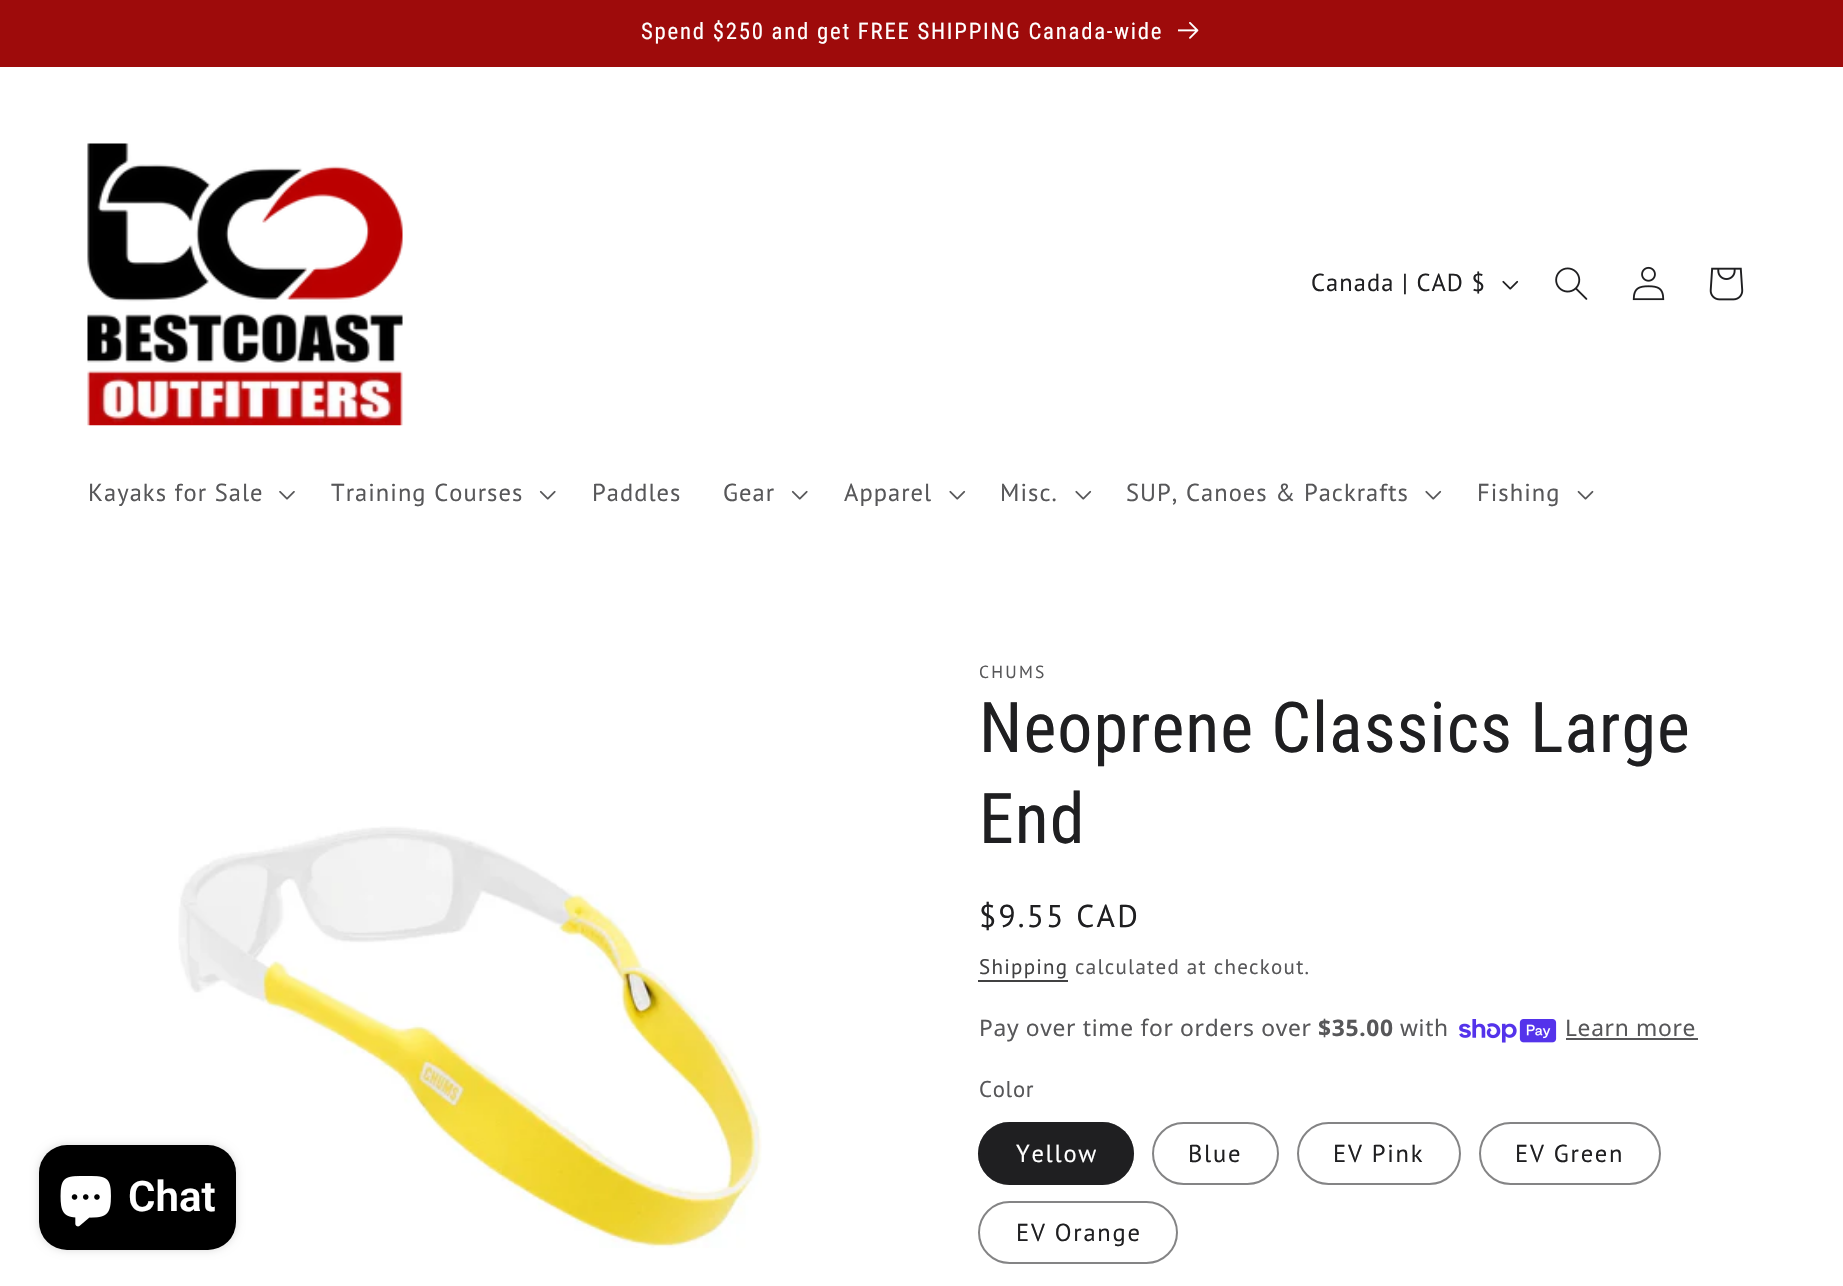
static SkFont makeFont(const char* family, int weight, float size, bool italic = false) {
  SkFontStyle style(weight, SkFontStyle::kNormal_Width,
    italic ? SkFontStyle::kItalic_Slant : SkFontStyle::kUpright_Slant);
  SkFont result(fontMgr->matchFamilyStyle(family, style), size);
  result.setSubpixel(true);
  return result;
}

static void text(SkCanvas* c, const char* s, float x, float y, const SkFont& font, SkColor color) {
  SkPaint ink(SkColor4f::FromColor(color));
  ink.setAntiAlias(true);
  c->drawString(s, x, y, font, ink);
}

static void spacedText(SkCanvas* c, const char* s, float x, float y, const SkFont& font, const SkPaint& ink, float letter, float word) {
  std::vector<SkGlyphID> glyphs(font.countText(s, strlen(s), SkTextEncoding::kUTF8));
  std::vector<float> xs(glyphs.size());
  font.textToGlyphs(s, strlen(s), SkTextEncoding::kUTF8, glyphs);
  font.getXPos(glyphs, xs, x);
  float extra = 0;
  for (size_t i = 0; i < glyphs.size(); i++) {
    xs[i] += extra;
    extra += letter + word * (glyphs[i] == font.unicharToGlyph(' '));
  }
  c->drawTextBlob(SkTextBlob::MakeFromPosHGlyphs(glyphs, xs, y, font), 0, 0, ink);
}

static void box(SkCanvas* c, float l, float t, float r, float b, SkColor color) {
  SkPaint ink(SkColor4f::FromColor(color));
  ink.setAntiAlias(true);
  c->drawRect(SkRect::MakeLTRB(l, t, r, b), ink);
}

static void roundBox(SkCanvas* c, float l, float t, float r, float b, float radius, SkColor color) {
  SkPaint ink(SkColor4f::FromColor(color));
  ink.setAntiAlias(true);
  c->drawRoundRect(SkRect::MakeLTRB(l, t, r, b), radius, radius, ink);
}

static void picture(SkCanvas* c, const char* path, float l, float t, float r, float b) {
  auto image = SkImages::DeferredFromEncodedData(SkData::MakeFromFileName(path));
  c->drawImageRect(image, SkRect::MakeLTRB(l, t, r, b), SkSamplingOptions());
}

void draw(SkCanvas* c) {
  SkPaint paint;
  paint.setAntiAlias(true);
  c->clear(0xffffffff);
  box(c, 0, 0, 1843, 67, 0xff9e0b0b);
  SkFont face1 = makeFont("Roboto Condensed", 400, 22.75f);
  paint.setColor(0xffffffff);
  spacedText(c, "Spend $250 and get FREE SHIPPING Canada-wide", 641, 39, face1, paint, 1.75f, 0);
  picture(c, "img_01.png", 1178, 22, 1199, 39);
  picture(c, "img_02.png", 87, 143, 403, 426);
  SkFont face2 = makeFont("PT Sans", 400, 24.5f);
  paint.setColor(0xff1f1f21);
  spacedText(c, "Canada | CAD $", 1311, 291, face2, paint, 1.05f, 0);
  picture(c, "img_03.png", 1502, 280, 1519, 290);
  picture(c, "img_04.png", 1555, 267, 1588, 300);
  picture(c, "img_05.png", 1632, 266, 1665, 301);
  picture(c, "img_06.png", 1709, 267, 1744, 301);
  paint.setColor(0xff575759);
  spacedText(c, "Kayaks for Sale", 88, 501, face2, paint, 1.05f, 0);
  picture(c, "img_07.png", 279, 491, 295, 500);
  spacedText(c, "Training Courses", 331, 501, face2, paint, 1.05f, 0);
  picture(c, "img_08.png", 539, 490, 556, 500);
  spacedText(c, "Paddles", 592, 501, face2, paint, 1.05f, 0);
  spacedText(c, "Gear", 723, 501, face2, paint, 1.05f, 0);
  picture(c, "img_08.png", 791, 490, 808, 500);
  spacedText(c, "Apparel", 844, 501, face2, paint, 1.05f, 0);
  picture(c, "img_09.png", 949, 490, 966, 500);
  spacedText(c, "Misc.", 1000, 501, face2, paint, 1.05f, 0);
  picture(c, "img_09.png", 1075, 490, 1092, 500);
  spacedText(c, "SUP, Canoes & Packrafts", 1126, 501, face2, paint, 1.05f, 0);
  picture(c, "img_09.png", 1425, 490, 1442, 500);
  spacedText(c, "Fishing", 1477, 501, face2, paint, 1.05f, 0);
  picture(c, "img_10.png", 1577, 490, 1594, 500);
  picture(c, "img_12.png", 178, 826, 762, 1248);
  paint.setColor(0x26000000);
  paint.setMaskFilter(SkMaskFilter::MakeBlur(kNormal_SkBlurStyle, 4.5f));
  c->drawRoundRect(SkRect::MakeLTRB(39, 1145, 236, 1250), 28, 28, paint);
  paint.setMaskFilter(nullptr);
  roundBox(c, 39, 1145, 236, 1250, 28, 0xff000000);
  picture(c, "img_11.png", 60, 1176, 111, 1227);
  SkFont face3 = makeFont("Roboto", 600, 42);
  text(c, "Chat", 128, 1211, face3, 0xffffffff);
  SkFont face4 = makeFont("PT Sans", 400, 17.5f);
  paint.setColor(0xff575759);
  spacedText(c, "CHUMS", 979, 678, face4, paint, 2.25f, 0);
  SkFont face5 = makeFont("Roboto Condensed", 400, 70);
  paint.setColor(0xff1f1f21);
  spacedText(c, "Neoprene Classics Large", 979, 752, face5, paint, 1.05f, 0);
  spacedText(c, "End", 979, 843, face5, paint, 1.05f, 0);
  SkFont face6 = makeFont("PT Sans", 400, 31.5f);
  spacedText(c, "$9.55 CAD", 979, 927, face6, paint, 2.25f, 0);
  SkFont face7 = makeFont("PT Sans", 400, 21);
  paint.setColor(0xff414142);
  spacedText(c, "Shipping", 979, 974, face7, paint, 1.25f, 0);
  box(c, 978, 980, 1068, 982, 0xff414142);
  paint.setColor(0xff575759);
  spacedText(c, "calculated at checkout.", 1075, 974, face7, paint, 1.25f, 0);
  SkFont face8 = makeFont("Noto Sans", 400, 22.75f);
  spacedText(c, "Pay over time for orders over", 979, 1036, face8, paint, 0.7f, 0);
  SkFont face9 = makeFont("Noto Sans", 700, 22.75f);
  spacedText(c, "$35.00", 1318, 1036, face9, paint, 0.7f, 0);
  spacedText(c, "with", 1400, 1036, face8, paint, 0.7f, 0);
  picture(c, "img_13.png", 1459, 1019, 1557, 1043);
  spacedText(c, "Learn more", 1565, 1036, face8, paint, 0.7f, 0);
  box(c, 1566, 1038, 1698, 1040, 0xff575759);
  SkFont face10 = makeFont("PT Sans", 400, 22.75f);
  spacedText(c, "Color", 979, 1097, face10, paint, 0.7f, 0);
  roundBox(c, 978, 1122, 1134, 1185, 31.5f, 0xff1f1f21);
  paint.setStyle(SkPaint::kStroke_Style);
  paint.setStrokeWidth(2);
  paint.setColor(0x8c1f1f21);
  c->drawRoundRect(SkRect::MakeLTRB(979, 1123, 1133, 1184), 30.5f, 30.5f, paint);
  paint.setStyle(SkPaint::kFill_Style);
  paint.setColor(0xffffffff);
  spacedText(c, "Yellow", 1016, 1162, face2, paint, 1.75f, 0);
  paint.setStyle(SkPaint::kStroke_Style);
  paint.setColor(0xff848485);
  c->drawRoundRect(SkRect::MakeLTRB(1153, 1123, 1278, 1184), 30.5f, 30.5f, paint);
  paint.setStyle(SkPaint::kFill_Style);
  paint.setColor(0xff1f1f21);
  spacedText(c, "Blue", 1188, 1162, face2, paint, 1.75f, 0);
  paint.setStyle(SkPaint::kStroke_Style);
  paint.setColor(0xff848485);
  c->drawRoundRect(SkRect::MakeLTRB(1298, 1123, 1460, 1184), 30.5f, 30.5f, paint);
  paint.setStyle(SkPaint::kFill_Style);
  paint.setColor(0xff1f1f21);
  spacedText(c, "EV Pink", 1333, 1162, face2, paint, 1.75f, 0);
  paint.setStyle(SkPaint::kStroke_Style);
  paint.setColor(0xff848485);
  c->drawRoundRect(SkRect::MakeLTRB(1480, 1123, 1660, 1184), 30.5f, 30.5f, paint);
  paint.setStyle(SkPaint::kFill_Style);
  paint.setColor(0xff1f1f21);
  spacedText(c, "EV Green", 1515, 1162, face2, paint, 1.75f, 0);
  paint.setStyle(SkPaint::kStroke_Style);
  paint.setColor(0xff848485);
  c->drawRoundRect(SkRect::MakeLTRB(979, 1202, 1177, 1263), 30.5f, 30.5f, paint);
  paint.setStyle(SkPaint::kFill_Style);
  paint.setColor(0xff1f1f21);
  spacedText(c, "EV Orange", 1016, 1241, face2, paint, 1.75f, 0);
}
